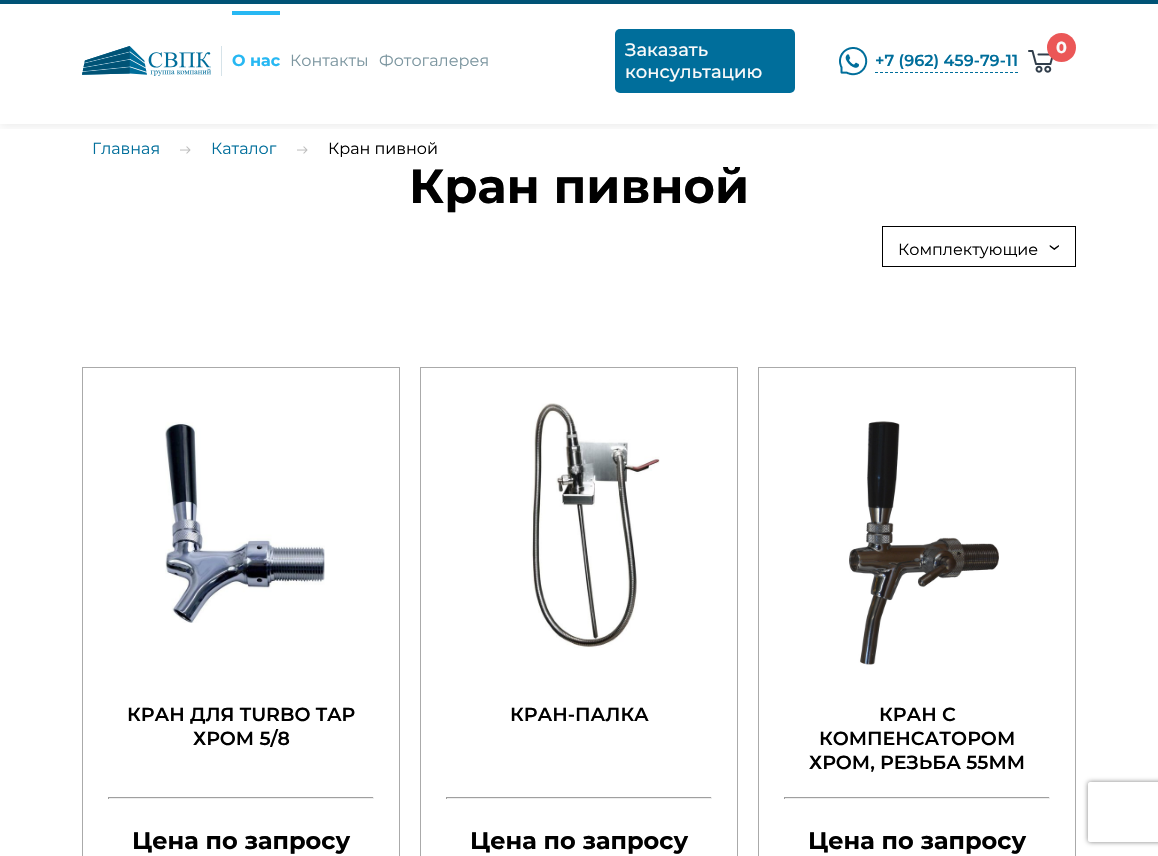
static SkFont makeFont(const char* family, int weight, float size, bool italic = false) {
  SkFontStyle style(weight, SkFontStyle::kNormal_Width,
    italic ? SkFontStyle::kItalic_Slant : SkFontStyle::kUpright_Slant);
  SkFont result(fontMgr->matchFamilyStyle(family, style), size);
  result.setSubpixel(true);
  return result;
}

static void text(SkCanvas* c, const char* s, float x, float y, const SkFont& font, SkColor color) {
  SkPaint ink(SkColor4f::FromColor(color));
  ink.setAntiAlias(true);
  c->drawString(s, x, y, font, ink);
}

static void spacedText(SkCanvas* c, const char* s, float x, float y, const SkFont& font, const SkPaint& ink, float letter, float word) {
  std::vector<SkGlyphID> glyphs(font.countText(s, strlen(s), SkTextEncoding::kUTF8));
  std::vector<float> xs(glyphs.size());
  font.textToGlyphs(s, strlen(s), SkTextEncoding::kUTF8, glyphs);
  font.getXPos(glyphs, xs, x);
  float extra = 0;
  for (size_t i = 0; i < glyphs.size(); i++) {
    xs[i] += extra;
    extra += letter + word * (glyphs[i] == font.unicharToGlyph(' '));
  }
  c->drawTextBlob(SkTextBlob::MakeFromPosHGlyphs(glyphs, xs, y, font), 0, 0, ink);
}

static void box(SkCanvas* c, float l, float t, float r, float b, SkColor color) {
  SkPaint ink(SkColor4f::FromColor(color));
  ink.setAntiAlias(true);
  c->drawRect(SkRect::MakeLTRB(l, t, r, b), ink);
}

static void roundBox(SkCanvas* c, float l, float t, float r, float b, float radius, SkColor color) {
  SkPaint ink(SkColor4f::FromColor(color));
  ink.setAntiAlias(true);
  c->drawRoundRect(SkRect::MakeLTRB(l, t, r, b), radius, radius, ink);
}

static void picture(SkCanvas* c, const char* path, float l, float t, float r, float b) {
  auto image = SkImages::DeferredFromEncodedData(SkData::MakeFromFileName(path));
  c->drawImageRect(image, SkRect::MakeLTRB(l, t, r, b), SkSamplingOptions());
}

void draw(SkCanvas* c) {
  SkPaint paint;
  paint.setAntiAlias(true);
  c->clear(0xffffffff);
  c->save();
  c->clipRect(SkRect::MakeLTRB(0, 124, 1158, 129));
  paint.setColor(0x14000000);
  paint.setMaskFilter(SkMaskFilter::MakeBlur(kNormal_SkBlurStyle, 5));
  c->drawRect(SkRect::MakeLTRB(0, 2, 1158, 126), paint);
  paint.setMaskFilter(nullptr);
  c->restore();
  box(c, 0, 0, 1158, 4, 0xff005376);
  box(c, 221, 46, 222, 76, 0xffd6e3e9);
  picture(c, "img_01.png", 82, 46, 211, 76);
  box(c, 232, 11, 280, 15, 0xff27b8f3);
  SkFont face1 = makeFont("Montserrat", 700, 16);
  text(c, "О нас", 232, 66, face1, 0xff27b8f3);
  SkFont face2 = makeFont("Montserrat", 400, 16);
  text(c, "Контакты", 290, 66, face2, 0xff7c96a0);
  text(c, "Фотогалерея", 379, 66, face2, 0xff7c96a0);
  roundBox(c, 615, 29, 795, 93, 5, 0xff006e9b);
  SkFont face3 = makeFont("Montserrat", 500, 18);
  text(c, "Заказать", 625, 56, face3, 0xfffafafa);
  text(c, "консультацию", 625, 78, face3, 0xfffafafa);
  picture(c, "img_02.png", 839, 47, 868, 76);
  paint.setStyle(SkPaint::kStroke_Style);
  paint.setStrokeWidth(1);
  paint.setColor(0xff006e9b);
  paint.setPathEffect(SkDashPathEffect::Make({{3, 2}}, 0));
  c->drawPath(SkPathBuilder().moveTo(875, 72.5f).lineTo(1018, 72.5f).detach(), paint);
  paint.setPathEffect(nullptr);
  SkFont face4 = makeFont("Montserrat", 600, 16);
  text(c, "+7 (962) 459-79-11", 875, 66, face4, 0xff006e9b);
  picture(c, "img_03.png", 1028, 50, 1053, 73);
  paint.setStyle(SkPaint::kFill_Style);
  paint.setColor(0xffeb5757);
  c->drawCircle(1061.5f, 47.5f, 14.5f, paint);
  text(c, "0", 1056, 53, face1, 0xfffafafa);
  text(c, "Главная", 92, 154, face2, 0xff006e9b);
  picture(c, "img_04.png", 180, 146, 191, 154);
  text(c, "Каталог", 211, 154, face2, 0xff006e9b);
  picture(c, "img_04.png", 297, 146, 308, 154);
  text(c, "Кран пивной", 328, 154, face2, 0xff000000);
  SkFont face5 = makeFont("Montserrat", 700, 48);
  text(c, "Кран пивной", 409, 203, face5, 0xff000000);
  paint.setStyle(SkPaint::kStroke_Style);
  paint.setColor(0xff000000);
  c->drawRect(SkRect::MakeLTRB(882.5f, 226.5f, 1075.5f, 266.5f), paint);
  text(c, "Комплектующие", 898, 255, face2, 0xff000000);
  SkFont face6 = makeFont("Montserrat", 400, 24);
  paint.setStyle(SkPaint::kFill_Style);
  c->save();
  c->rotate(90, 1048, 244);
  spacedText(c, "›", 1048, 244, face6, paint, 4, 0);
  c->restore();
  paint.setStyle(SkPaint::kStroke_Style);
  paint.setColor(0xffaaaaaa);
  c->drawRect(SkRect::MakeLTRB(82.5f, 367.5f, 399.5f, 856.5f), paint);
  picture(c, "img_05.png", 165, 422, 325, 623);
  SkFont face7 = makeFont("Montserrat", 600, 19);
  text(c, "КРАН ДЛЯ TURBO TAP", 127, 721, face7, 0xff000000);
  text(c, "ХРОМ 5/8", 193, 745, face7, 0xff000000);
  box(c, 108, 797, 374, 798, 0xff9f9f9f);
  box(c, 373, 797, 374, 799, 0xffeeeeee);
  box(c, 108, 798, 374, 799, 0xffeeeeee);
  box(c, 108, 797, 109, 799, 0xff9f9f9f);
  SkFont face8 = makeFont("Montserrat", 700, 24);
  text(c, "Цена по запросу", 132, 849, face8, 0xff000000);
  c->drawRect(SkRect::MakeLTRB(420.5f, 367.5f, 737.5f, 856.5f), paint);
  picture(c, "img_06.png", 531, 403, 660, 648);
  text(c, "КРАН-ПАЛКА", 510, 721, face7, 0xff000000);
  box(c, 446, 797, 712, 798, 0xff9f9f9f);
  box(c, 711, 797, 712, 799, 0xffeeeeee);
  box(c, 446, 798, 712, 799, 0xffeeeeee);
  box(c, 446, 797, 447, 799, 0xff9f9f9f);
  text(c, "Цена по запросу", 470, 849, face8, 0xff000000);
  c->drawRect(SkRect::MakeLTRB(758.5f, 367.5f, 1075.5f, 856.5f), paint);
  picture(c, "img_07.png", 849, 421, 999, 665);
  text(c, "КРАН С", 879, 721, face7, 0xff000000);
  text(c, "КОМПЕНСАТОРОМ", 819, 745, face7, 0xff000000);
  text(c, "ХРОМ, РЕЗЬБА 55ММ", 809, 769, face7, 0xff000000);
  box(c, 784, 797, 1050, 798, 0xff9f9f9f);
  box(c, 1049, 797, 1050, 799, 0xffeeeeee);
  box(c, 784, 798, 1050, 799, 0xffeeeeee);
  box(c, 784, 797, 785, 799, 0xff9f9f9f);
  text(c, "Цена по запросу", 808, 849, face8, 0xff000000);
  c->save();
  c->clipPath(SkPathBuilder(SkPathFillType::kEvenOdd).moveTo(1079, 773).lineTo(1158, 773).lineTo(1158, 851).lineTo(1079, 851).close().moveTo(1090, 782).lineTo(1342, 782).cubicTo(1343, 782, 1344, 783, 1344, 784).lineTo(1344, 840).cubicTo(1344, 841, 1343, 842, 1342, 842).lineTo(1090, 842).cubicTo(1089, 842, 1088, 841, 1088, 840).lineTo(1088, 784).cubicTo(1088, 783, 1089, 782, 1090, 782).close().detach(), true);
  paint.setStyle(SkPaint::kFill_Style);
  paint.setColor(0xff808080);
  paint.setMaskFilter(SkMaskFilter::MakeBlur(kNormal_SkBlurStyle, 2.5f));
  c->drawRoundRect(SkRect::MakeLTRB(1088, 782, 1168, 842), 2, 2, paint);
  paint.setMaskFilter(nullptr);
  c->restore();
}
